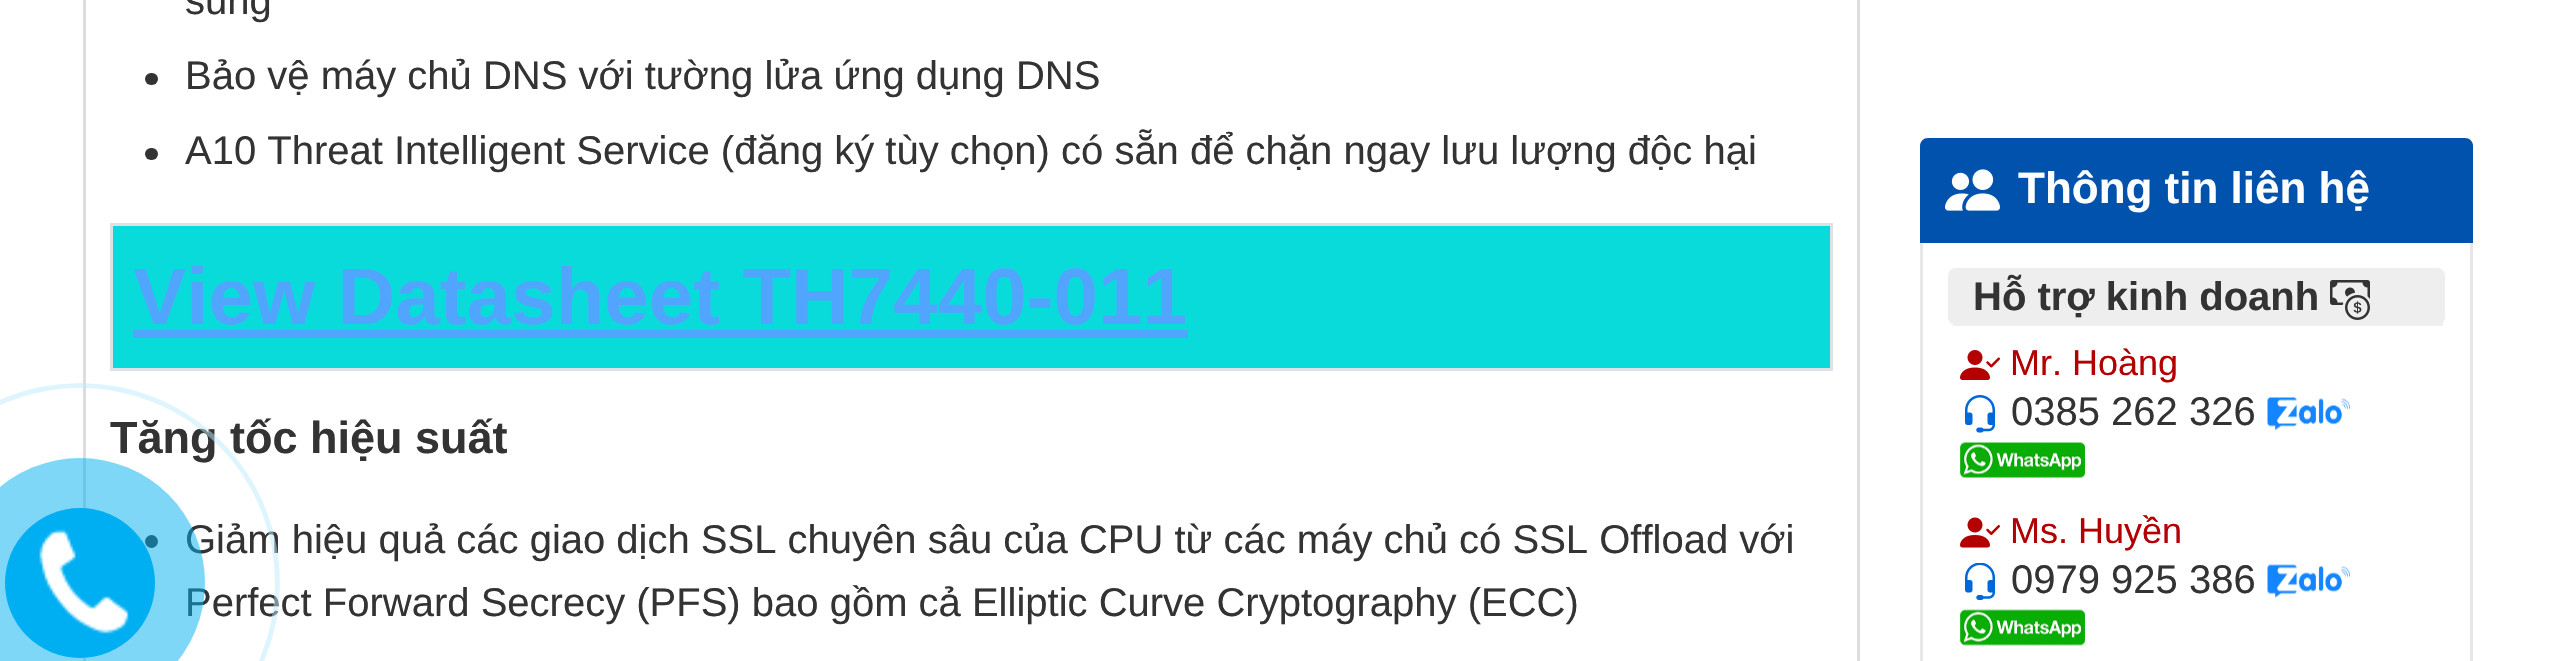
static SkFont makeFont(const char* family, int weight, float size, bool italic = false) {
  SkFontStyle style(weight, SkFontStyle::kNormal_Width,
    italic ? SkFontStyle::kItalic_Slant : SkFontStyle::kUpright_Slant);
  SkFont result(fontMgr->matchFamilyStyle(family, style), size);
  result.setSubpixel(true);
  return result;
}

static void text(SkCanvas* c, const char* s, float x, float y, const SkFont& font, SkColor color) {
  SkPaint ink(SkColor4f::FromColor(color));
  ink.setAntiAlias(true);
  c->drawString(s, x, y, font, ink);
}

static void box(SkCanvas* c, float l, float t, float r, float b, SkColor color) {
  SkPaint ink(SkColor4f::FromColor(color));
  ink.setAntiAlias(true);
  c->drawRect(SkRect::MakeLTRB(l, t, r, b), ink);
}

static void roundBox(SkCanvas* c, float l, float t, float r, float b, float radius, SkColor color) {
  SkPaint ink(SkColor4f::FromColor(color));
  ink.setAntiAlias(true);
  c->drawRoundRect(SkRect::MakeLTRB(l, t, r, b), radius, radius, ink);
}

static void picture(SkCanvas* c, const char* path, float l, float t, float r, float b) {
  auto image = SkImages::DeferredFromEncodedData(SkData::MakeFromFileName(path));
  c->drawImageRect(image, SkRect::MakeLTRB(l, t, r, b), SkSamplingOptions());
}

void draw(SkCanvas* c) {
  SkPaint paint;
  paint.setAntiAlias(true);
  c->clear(0xffffffff);
  paint.setStyle(SkPaint::kStroke_Style);
  paint.setStrokeWidth(3);
  paint.setColor(0xffdddddd);
  c->drawRect(SkRect::MakeLTRB(84.5f, -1.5f, 1858.5f, 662.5f), paint);
  SkFont face1 = makeFont("Liberation Sans", 700, 45);
  text(c, "Tăng tốc hiệu suất", 110, 453, face1, 0xff333333);
  paint.setStyle(SkPaint::kFill_Style);
  paint.setColor(0xff333333);
  c->drawCircle(151.5f, 541.5f, 6.5f, paint);
  SkFont face2 = makeFont("Liberation Sans", 400, 40);
  text(c, "Giảm hiệu quả các giao dịch SSL chuyên sâu của CPU từ các máy chủ có SSL Offload với", 185, 553, face2, 0xff333333);
  text(c, "Perfect Forward Secrecy (PFS) bao gồm cả Elliptic Curve Cryptography (ECC)", 185, 616, face2, 0xff333333);
  paint.setStyle(SkPaint::kStroke_Style);
  paint.setStrokeWidth(5);
  paint.setColor(0x80bfebfc);
  c->drawCircle(80, 583, 197.5f, paint);
  paint.setStyle(SkPaint::kFill_Style);
  paint.setColor(0x8000aff2);
  c->drawCircle(80, 583, 125, paint);
  paint.setColor(0xff00aff2);
  c->drawCircle(80, 583, 75, paint);
  picture(c, "img_01.png", 39, 529, 129, 634);
  text(c, "sung", 185, 14, face2, 0xff333333);
  roundBox(c, 145, 73, 158, 85, 6, 0xff333333);
  text(c, "Bảo vệ máy chủ DNS với tường lửa ứng dụng DNS", 185, 89, face2, 0xff333333);
  roundBox(c, 145, 148, 158, 160, 6, 0xff333333);
  text(c, "A10 Threat Intelligent Service (đăng ký tùy chọn) có sẵn để chặn ngay lưu lượng độc hại", 185, 164, face2, 0xff333333);
  box(c, 113, 226, 1830, 368, 0xff09dbdb);
  box(c, 110, 223, 1833, 226, 0xffdee2e6);
  box(c, 110, 368, 1833, 371, 0xffdee2e6);
  box(c, 1830, 223, 1833, 370, 0xffdee2e6);
  box(c, 110, 223, 113, 370, 0xffdee2e6);
  SkFont face3 = makeFont("Liberation Sans", 700, 80);
  text(c, "View Datasheet TH7440-011", 133, 324, face3, 0xff52a5ff);
  box(c, 133, 330, 1188, 338, 0xff52a5ff);
  paint.setColor(0xff0052ad);
  c->drawPath(SkPathBuilder().moveTo(1928, 138).lineTo(2465, 138).cubicTo(2469.5f, 138, 2473, 141.5f, 2473, 146).lineTo(2473, 243).lineTo(1920, 243).lineTo(1920, 146).cubicTo(1920, 141.5f, 1923.5f, 138, 1928, 138).close().detach(), paint);
  picture(c, "img_02.png", 1945, 169, 2000, 211);
  SkFont face4 = makeFont("Liberation Sans", 700, 44);
  text(c, "Thông tin liên hệ", 2018, 203, face4, 0xffffffff);
  box(c, 2470, 243, 2473, 661, 0xffe7e7e7);
  box(c, 1920, 243, 1923, 661, 0xffe7e7e7);
  roundBox(c, 1948, 268, 2445, 325, 8, 0xffeeeeee);
  box(c, 1953, 323, 2443, 326, 0xffeeeeee);
  SkFont face5 = makeFont("Liberation Sans", 700, 40);
  text(c, "Hỗ trợ kinh doanh", 1973, 310, face5, 0xff333333);
  picture(c, "img_03.png", 2330, 280, 2370, 320);
  picture(c, "img_04.png", 1960, 350, 2000, 380);
  SkFont face6 = makeFont("Liberation Sans", 400, 36);
  text(c, "Mr. Hoàng", 2010, 375, face6, 0xffb30000);
  picture(c, "img_05.png", 1965, 395, 1995, 433);
  text(c, "0385 262 326", 2011, 425, face2, 0xff333333);
  picture(c, "img_06.png", 2267, 397, 2350, 431);
  picture(c, "img_07.png", 1960, 442, 2085, 478);
  picture(c, "img_08.png", 1960, 517, 2000, 548);
  text(c, "Ms. Huyền", 2010, 543, face6, 0xffb30000);
  picture(c, "img_09.png", 1965, 563, 1995, 600);
  text(c, "0979 925 386", 2011, 593, face2, 0xff333333);
  picture(c, "img_10.png", 2267, 564, 2350, 598);
  picture(c, "img_11.png", 1960, 609, 2085, 646);
}
